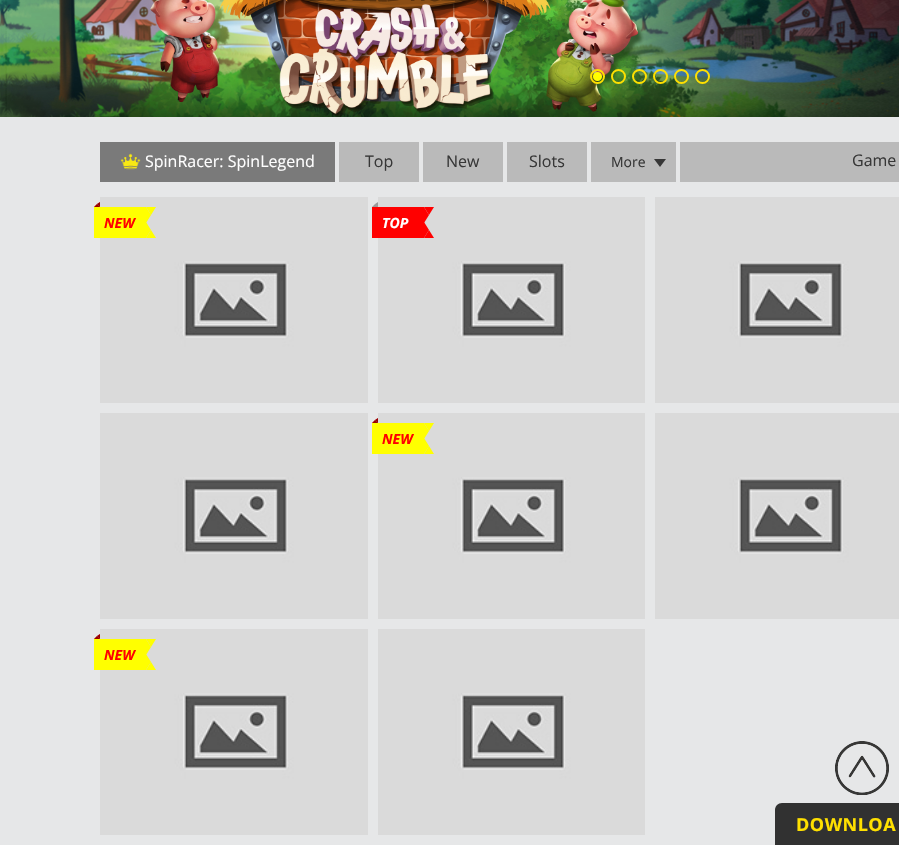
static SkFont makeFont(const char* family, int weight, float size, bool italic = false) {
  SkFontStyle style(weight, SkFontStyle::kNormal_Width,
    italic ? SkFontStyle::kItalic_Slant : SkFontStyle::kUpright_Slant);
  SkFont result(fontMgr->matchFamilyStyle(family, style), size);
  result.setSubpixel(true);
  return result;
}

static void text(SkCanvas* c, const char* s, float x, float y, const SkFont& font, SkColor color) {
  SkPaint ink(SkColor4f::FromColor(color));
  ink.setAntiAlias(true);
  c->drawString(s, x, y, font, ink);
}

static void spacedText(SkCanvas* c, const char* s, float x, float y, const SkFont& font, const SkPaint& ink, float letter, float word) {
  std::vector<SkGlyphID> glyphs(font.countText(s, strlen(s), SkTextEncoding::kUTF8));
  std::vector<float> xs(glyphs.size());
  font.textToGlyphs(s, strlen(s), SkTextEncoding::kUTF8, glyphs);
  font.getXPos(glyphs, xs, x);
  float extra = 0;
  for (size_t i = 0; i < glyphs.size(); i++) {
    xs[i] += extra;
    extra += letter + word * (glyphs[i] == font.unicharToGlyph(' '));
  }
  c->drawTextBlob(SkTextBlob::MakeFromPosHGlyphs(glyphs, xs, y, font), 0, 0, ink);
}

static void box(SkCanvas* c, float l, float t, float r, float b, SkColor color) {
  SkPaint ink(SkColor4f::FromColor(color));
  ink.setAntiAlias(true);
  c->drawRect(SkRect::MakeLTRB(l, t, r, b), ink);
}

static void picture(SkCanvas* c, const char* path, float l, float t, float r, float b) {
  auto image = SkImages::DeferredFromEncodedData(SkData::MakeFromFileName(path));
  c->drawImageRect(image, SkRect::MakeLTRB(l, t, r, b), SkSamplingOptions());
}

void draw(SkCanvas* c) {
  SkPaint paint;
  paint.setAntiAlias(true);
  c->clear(0xffe6e7e8);
  picture(c, "img_01.png", 0, 0, 899, 117);
  picture(c, "img_02.png", 593, 72, 602, 81);
  paint.setStyle(SkPaint::kStroke_Style);
  paint.setStrokeWidth(2);
  paint.setColor(0xffffe000);
  c->drawCircle(597.5f, 76.5f, 6.5f, paint);
  paint.setStyle(SkPaint::kFill_Style);
  paint.setColor(0x1a000000);
  c->drawCircle(618.5f, 76.5f, 6.5f, paint);
  paint.setStyle(SkPaint::kStroke_Style);
  paint.setColor(0xffffe000);
  c->drawCircle(618.5f, 76.5f, 6.5f, paint);
  paint.setStyle(SkPaint::kFill_Style);
  paint.setColor(0x1a000000);
  c->drawCircle(639.5f, 76.5f, 6.5f, paint);
  paint.setStyle(SkPaint::kStroke_Style);
  paint.setColor(0xffffe000);
  c->drawCircle(639.5f, 76.5f, 6.5f, paint);
  paint.setStyle(SkPaint::kFill_Style);
  paint.setColor(0x1a000000);
  c->drawCircle(660.5f, 76.5f, 6.5f, paint);
  paint.setStyle(SkPaint::kStroke_Style);
  paint.setColor(0xffffe000);
  c->drawCircle(660.5f, 76.5f, 6.5f, paint);
  paint.setStyle(SkPaint::kFill_Style);
  paint.setColor(0x1a000000);
  c->drawCircle(681.5f, 76.5f, 6.5f, paint);
  paint.setStyle(SkPaint::kStroke_Style);
  paint.setColor(0xffffe000);
  c->drawCircle(681.5f, 76.5f, 6.5f, paint);
  paint.setStyle(SkPaint::kFill_Style);
  paint.setColor(0x1a000000);
  c->drawCircle(702.5f, 76.5f, 6.5f, paint);
  paint.setStyle(SkPaint::kStroke_Style);
  paint.setColor(0xffffe000);
  c->drawCircle(702.5f, 76.5f, 6.5f, paint);
  box(c, 339, 142, 899, 182, 0xffbababa);
  box(c, 100, 142, 335, 182, 0xff7a7a7a);
  picture(c, "img_03.png", 120, 153, 141, 170);
  SkFont face1 = makeFont("Open Sans", 400, 16);
  text(c, "SpinRacer: SpinLegend", 145, 167, face1, 0xffffffff);
  box(c, 419, 142, 423, 182, 0xffe6e7e8);
  text(c, "Top", 365, 167, face1, 0xff373737);
  box(c, 503, 142, 507, 182, 0xffe6e7e8);
  text(c, "New", 446, 167, face1, 0xff373737);
  box(c, 587, 142, 591, 182, 0xffe6e7e8);
  text(c, "Slots", 529, 167, face1, 0xff373737);
  box(c, 676, 142, 680, 182, 0xffe6e7e8);
  SkFont face2 = makeFont("Open Sans", 400, 14);
  text(c, "More", 611, 167, face2, 0xff373737);
  paint.setStyle(SkPaint::kFill_Style);
  paint.setColor(0xff373737);
  c->drawPath(SkPathBuilder().moveTo(654, 159).lineTo(666, 159).lineTo(660, 167).close().detach(), paint);
  text(c, "Game", 852, 166, face1, 0xff373737);
  picture(c, "img_04.png", 100, 197, 368, 403);
  box(c, 94, 207, 146, 238, 0xffffff00);
  paint.setColor(0xffff0000);
  c->drawPath(SkPathBuilder().moveTo(100, 202).lineTo(100, 207).lineTo(97, 204).close().detach(), paint);
  c->drawPath(SkPathBuilder().moveTo(100, 207).lineTo(94, 207).lineTo(97, 204).close().detach(), paint);
  paint.setColor(0x66000000);
  c->drawPath(SkPathBuilder().moveTo(100, 202).lineTo(100, 207).lineTo(97, 204).close().detach(), paint);
  c->drawPath(SkPathBuilder().moveTo(100, 207).lineTo(94, 207).lineTo(97, 204).close().detach(), paint);
  SkFont face3 = makeFont("Open Sans", 700, 14, true);
  text(c, "NEW", 104, 228, face3, 0xffff0000);
  paint.setColor(0xffffff00);
  c->drawPath(SkPathBuilder().moveTo(146, 207).lineTo(156, 207).lineTo(151, 215).close().detach(), paint);
  c->drawPath(SkPathBuilder().moveTo(146, 223).lineTo(146, 207).lineTo(151, 215).close().moveTo(156, 238).lineTo(146, 238).lineTo(151, 230).close().detach(), paint);
  c->drawPath(SkPathBuilder().moveTo(146, 238).lineTo(146, 222).lineTo(151, 230).close().detach(), paint);
  picture(c, "img_05.png", 378, 197, 645, 403);
  box(c, 372, 207, 424, 238, 0xffff0000);
  paint.setColor(0xffffffff);
  c->drawPath(SkPathBuilder().moveTo(378, 202).lineTo(378, 207).lineTo(375, 204).close().detach(), paint);
  c->drawPath(SkPathBuilder().moveTo(378, 207).lineTo(372, 207).lineTo(375, 204).close().detach(), paint);
  paint.setColor(0x66000000);
  c->drawPath(SkPathBuilder().moveTo(378, 202).lineTo(378, 207).lineTo(375, 204).close().detach(), paint);
  c->drawPath(SkPathBuilder().moveTo(378, 207).lineTo(372, 207).lineTo(375, 204).close().detach(), paint);
  text(c, "TOP", 382, 228, face3, 0xffffffff);
  paint.setColor(0xffff0000);
  c->drawPath(SkPathBuilder().moveTo(424, 207).lineTo(434, 207).lineTo(429, 215).close().detach(), paint);
  c->drawPath(SkPathBuilder().moveTo(424, 223).lineTo(424, 207).lineTo(429, 215).close().moveTo(434, 238).lineTo(424, 238).lineTo(429, 230).close().detach(), paint);
  c->drawPath(SkPathBuilder().moveTo(424, 238).lineTo(424, 222).lineTo(429, 230).close().detach(), paint);
  picture(c, "img_06.png", 655, 197, 899, 403);
  picture(c, "img_04.png", 100, 413, 368, 619);
  picture(c, "img_05.png", 378, 413, 645, 619);
  box(c, 372, 423, 424, 454, 0xffffff00);
  c->drawPath(SkPathBuilder().moveTo(378, 418).lineTo(378, 423).lineTo(375, 420).close().detach(), paint);
  c->drawPath(SkPathBuilder().moveTo(378, 423).lineTo(372, 423).lineTo(375, 420).close().detach(), paint);
  paint.setColor(0x66000000);
  c->drawPath(SkPathBuilder().moveTo(378, 418).lineTo(378, 423).lineTo(375, 420).close().detach(), paint);
  c->drawPath(SkPathBuilder().moveTo(378, 423).lineTo(372, 423).lineTo(375, 420).close().detach(), paint);
  text(c, "NEW", 382, 444, face3, 0xffff0000);
  paint.setColor(0xffffff00);
  c->drawPath(SkPathBuilder().moveTo(424, 423).lineTo(434, 423).lineTo(429, 431).close().detach(), paint);
  c->drawPath(SkPathBuilder().moveTo(424, 439).lineTo(424, 423).lineTo(429, 431).close().moveTo(434, 454).lineTo(424, 454).lineTo(429, 446).close().detach(), paint);
  c->drawPath(SkPathBuilder().moveTo(424, 454).lineTo(424, 438).lineTo(429, 446).close().detach(), paint);
  picture(c, "img_07.png", 655, 413, 899, 619);
  picture(c, "img_04.png", 100, 629, 368, 835);
  box(c, 94, 639, 146, 670, 0xffffff00);
  paint.setColor(0xffff0000);
  c->drawPath(SkPathBuilder().moveTo(100, 634).lineTo(100, 639).lineTo(97, 636).close().detach(), paint);
  c->drawPath(SkPathBuilder().moveTo(100, 639).lineTo(94, 639).lineTo(97, 636).close().detach(), paint);
  paint.setColor(0x66000000);
  c->drawPath(SkPathBuilder().moveTo(100, 634).lineTo(100, 639).lineTo(97, 636).close().detach(), paint);
  c->drawPath(SkPathBuilder().moveTo(100, 639).lineTo(94, 639).lineTo(97, 636).close().detach(), paint);
  text(c, "NEW", 104, 660, face3, 0xffff0000);
  paint.setColor(0xffffff00);
  c->drawPath(SkPathBuilder().moveTo(146, 639).lineTo(156, 639).lineTo(151, 647).close().detach(), paint);
  c->drawPath(SkPathBuilder().moveTo(146, 655).lineTo(146, 639).lineTo(151, 647).close().moveTo(156, 670).lineTo(146, 670).lineTo(151, 662).close().detach(), paint);
  c->drawPath(SkPathBuilder().moveTo(146, 670).lineTo(146, 654).lineTo(151, 662).close().detach(), paint);
  picture(c, "img_05.png", 378, 629, 645, 835);
  picture(c, "img_08.png", 835, 741, 889, 795);
  paint.setColor(0xff313131);
  c->drawPath(SkPathBuilder().moveTo(782, 803).lineTo(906, 803).lineTo(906, 845).lineTo(775, 845).lineTo(775, 810).cubicTo(775, 806, 778, 803, 782, 803).close().detach(), paint);
  SkFont face4 = makeFont("Open Sans", 700, 18);
  paint.setColor(0xffffe000);
  spacedText(c, "DOWNLOA", 796, 831, face4, paint, 0.5f, 0);
}
